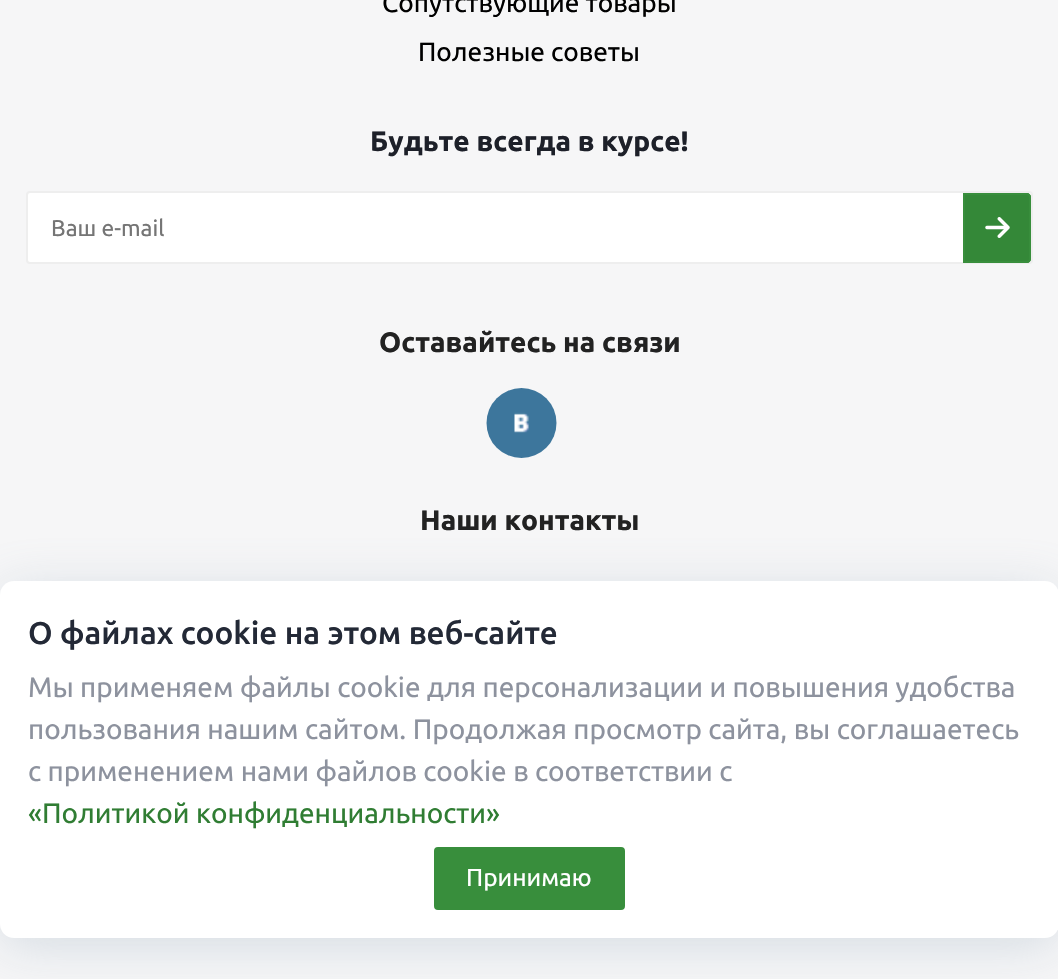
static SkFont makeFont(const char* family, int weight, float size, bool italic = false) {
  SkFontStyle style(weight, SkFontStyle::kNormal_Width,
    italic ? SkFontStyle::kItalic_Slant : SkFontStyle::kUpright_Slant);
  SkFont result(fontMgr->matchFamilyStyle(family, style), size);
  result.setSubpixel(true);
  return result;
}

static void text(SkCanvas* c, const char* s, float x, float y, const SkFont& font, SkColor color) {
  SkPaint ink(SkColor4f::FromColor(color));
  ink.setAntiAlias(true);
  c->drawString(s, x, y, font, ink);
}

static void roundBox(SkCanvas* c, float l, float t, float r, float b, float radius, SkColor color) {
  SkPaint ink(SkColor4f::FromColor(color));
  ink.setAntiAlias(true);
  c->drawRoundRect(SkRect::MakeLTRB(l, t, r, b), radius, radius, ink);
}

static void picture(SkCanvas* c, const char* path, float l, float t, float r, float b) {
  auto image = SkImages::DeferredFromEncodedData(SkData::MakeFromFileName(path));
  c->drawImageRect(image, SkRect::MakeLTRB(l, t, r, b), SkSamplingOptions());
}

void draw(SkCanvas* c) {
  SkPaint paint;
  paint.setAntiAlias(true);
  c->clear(0xfff6f6f7);
  SkFont face1 = makeFont("Ubuntu", 400, 26.25f);
  text(c, "Сопутствующие товары", 382, 12, face1, 0xff000000);
  text(c, "Полезные советы", 418, 61, face1, 0xff000000);
  SkFont face2 = makeFont("Ubuntu", 700, 28.1f);
  text(c, "Будьте всегда в курсе!", 370, 151, face2, 0xff1d2029);
  paint.setColor(0xffffffff);
  c->drawRoundRect(SkRect::MakeLTRB(27, 192, 1032, 263), 3, 3, paint);
  paint.setStyle(SkPaint::kStroke_Style);
  paint.setStrokeWidth(2);
  paint.setColor(0xffeeeeee);
  c->drawRoundRect(SkRect::MakeLTRB(27, 192, 1032, 263), 3, 3, paint);
  SkFont face3 = makeFont("Ubuntu", 400, 22.75f);
  text(c, "Ваш e-mail", 51, 236, face3, 0xff757575);
  paint.setStyle(SkPaint::kFill_Style);
  paint.setColor(0xff348838);
  c->drawPath(SkPathBuilder().moveTo(963, 193).lineTo(1027, 193).cubicTo(1029, 193, 1031, 195, 1031, 197).lineTo(1031, 259).cubicTo(1031, 261, 1029, 263, 1027, 263).lineTo(963, 263).close().detach(), paint);
  picture(c, "img_01.png", 985, 217, 1010, 238);
  paint.setStyle(SkPaint::kStroke_Style);
  paint.setColor(0xff388e3c);
  c->drawPath(SkPathBuilder().moveTo(964, 194).lineTo(1027, 194).cubicTo(1028.5f, 194, 1030, 195.5f, 1030, 197).lineTo(1030, 259).cubicTo(1030, 260.5f, 1028.5f, 262, 1027, 262).lineTo(964, 262).close().detach(), paint);
  text(c, "Оставайтесь на связи", 379, 352, face2, 0xff222222);
  picture(c, "img_02.png", 486, 388, 557, 458);
  text(c, "Наши контакты", 420, 530, face2, 0xff222222);
  paint.setStyle(SkPaint::kFill_Style);
  paint.setColor(0x4d899eb4);
  paint.setMaskFilter(SkMaskFilter::MakeBlur(kNormal_SkBlurStyle, 26));
  c->drawRoundRect(SkRect::MakeLTRB(0, 590, 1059, 947), 14, 14, paint);
  paint.setMaskFilter(nullptr);
  roundBox(c, 0, 581, 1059, 938, 14, 0xffffffff);
  SkFont face4 = makeFont("Ubuntu", 500, 31.5f);
  text(c, "О файлах cookie на этом веб-сайте", 28, 644, face4, 0xff232936);
  SkFont face5 = makeFont("Ubuntu", 400, 28);
  text(c, "Мы применяем файлы cookie для персонализации и повышения удобства", 28, 697, face5, 0xff8d929e);
  text(c, "пользования нашим сайтом. Продолжая просмотр сайта, вы соглашаетесь", 28, 739, face5, 0xff8d929e);
  text(c, "с применением нами файлов cookie в соответствии с", 28, 781, face5, 0xff8d929e);
  text(c, "«Политикой конфиденциальности»", 28, 823, face5, 0xff307d33);
  paint.setColor(0xff388e3c);
  c->drawRoundRect(SkRect::MakeLTRB(435, 848, 624, 909), 3, 3, paint);
  paint.setStyle(SkPaint::kStroke_Style);
  c->drawRoundRect(SkRect::MakeLTRB(435, 848, 624, 909), 3, 3, paint);
  SkFont face6 = makeFont("Ubuntu", 400, 24.5f);
  text(c, "Принимаю", 466, 886, face6, 0xffffffff);
}
